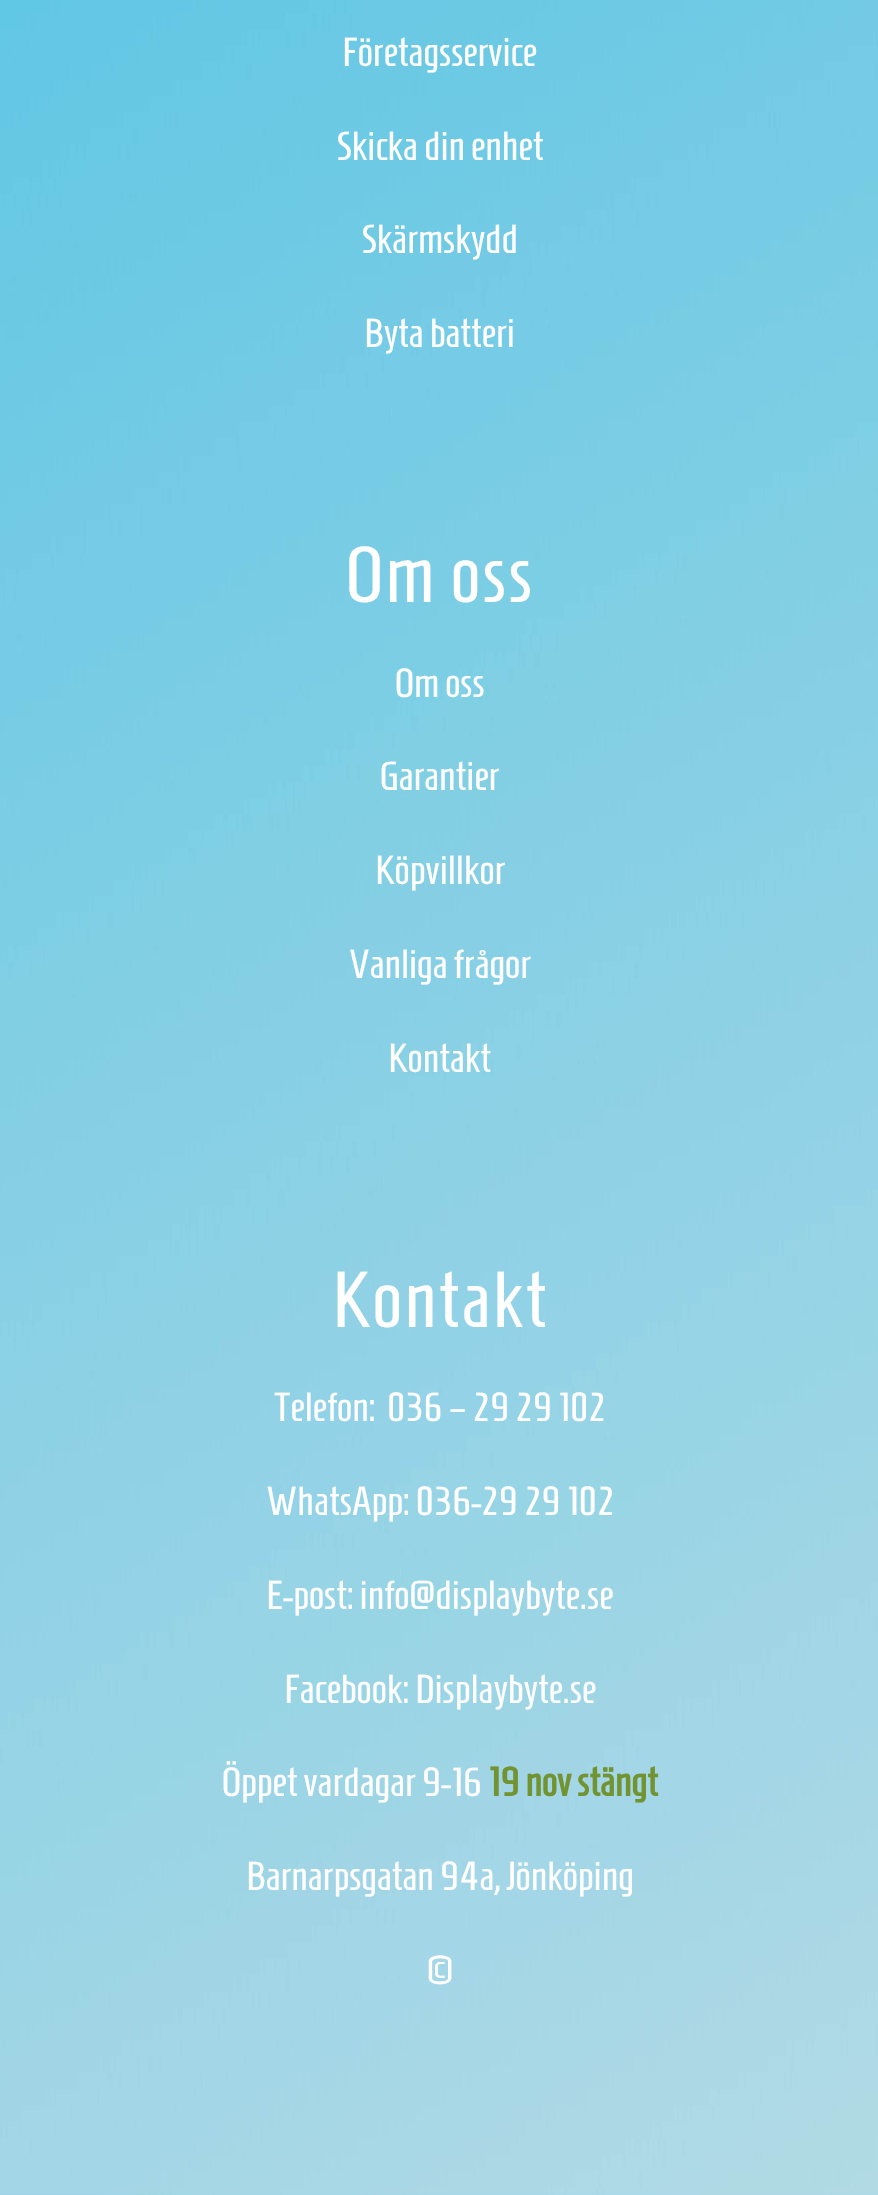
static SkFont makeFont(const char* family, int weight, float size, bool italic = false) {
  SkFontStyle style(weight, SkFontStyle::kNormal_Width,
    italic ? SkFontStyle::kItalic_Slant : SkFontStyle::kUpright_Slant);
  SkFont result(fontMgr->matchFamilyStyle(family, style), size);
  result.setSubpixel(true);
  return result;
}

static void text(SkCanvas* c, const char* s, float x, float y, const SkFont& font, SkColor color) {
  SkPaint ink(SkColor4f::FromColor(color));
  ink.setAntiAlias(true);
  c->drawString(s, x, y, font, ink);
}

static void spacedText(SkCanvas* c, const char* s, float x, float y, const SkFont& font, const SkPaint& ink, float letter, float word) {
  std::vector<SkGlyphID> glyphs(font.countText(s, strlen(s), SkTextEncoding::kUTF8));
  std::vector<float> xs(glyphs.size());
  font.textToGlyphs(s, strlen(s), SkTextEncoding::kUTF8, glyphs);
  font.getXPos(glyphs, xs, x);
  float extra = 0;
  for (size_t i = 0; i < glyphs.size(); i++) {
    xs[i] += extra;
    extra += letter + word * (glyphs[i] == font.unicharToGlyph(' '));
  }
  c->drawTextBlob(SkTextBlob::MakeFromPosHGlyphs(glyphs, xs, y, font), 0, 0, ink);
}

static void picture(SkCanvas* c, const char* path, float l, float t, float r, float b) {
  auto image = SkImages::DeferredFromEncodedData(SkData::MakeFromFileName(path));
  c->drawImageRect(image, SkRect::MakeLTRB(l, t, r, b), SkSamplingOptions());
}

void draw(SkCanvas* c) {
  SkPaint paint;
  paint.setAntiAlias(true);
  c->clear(0xffffffff);
  picture(c, "img_01.png", 0, 0, 878, 2195);
  SkFont face1 = makeFont("Homenaje", 400, 40.5f);
  text(c, "Företagsservice", 342, 66, face1, 0xffffffff);
  text(c, "Skicka din enhet", 336, 160, face1, 0xffffffff);
  text(c, "Skärmskydd", 361, 253, face1, 0xffffffff);
  text(c, "Byta batteri", 364, 347, face1, 0xffffffff);
  SkFont face2 = makeFont("Homenaje", 400, 79);
  paint.setColor(0xffffffff);
  spacedText(c, "Om oss", 346, 602, face2, paint, 2.25f, 0);
  text(c, "Om oss", 395, 697, face1, 0xffffffff);
  text(c, "Garantier", 380, 790, face1, 0xffffffff);
  text(c, "Köpvillkor", 375, 884, face1, 0xffffffff);
  text(c, "Vanliga frågor", 349, 978, face1, 0xffffffff);
  text(c, "Kontakt", 388, 1072, face1, 0xffffffff);
  spacedText(c, "Kontakt", 332, 1327, face2, paint, 2.25f, 0);
  text(c, "Telefon:", 274, 1421, face1, 0xffffffff);
  text(c, "036 – 29 29 102", 387, 1421, face1, 0xffffffff);
  text(c, "WhatsApp: 036-29 29 102", 266, 1515, face1, 0xffffffff);
  text(c, "E-post: info@displaybyte.se", 266, 1609, face1, 0xffffffff);
  text(c, "Facebook: Displaybyte.se", 284, 1703, face1, 0xffffffff);
  text(c, "Öppet vardagar 9-16", 222, 1796, face1, 0xffffffff);
  SkFont face3 = makeFont("Homenaje", 700, 40.5f);
  text(c, "19 nov stängt", 488, 1796, face3, 0xff719430);
  text(c, "Barnarpsgatan 94a, Jönköping", 246, 1890, face1, 0xffffffff);
  text(c, "©", 427, 1984, face1, 0xffffffff);
}
